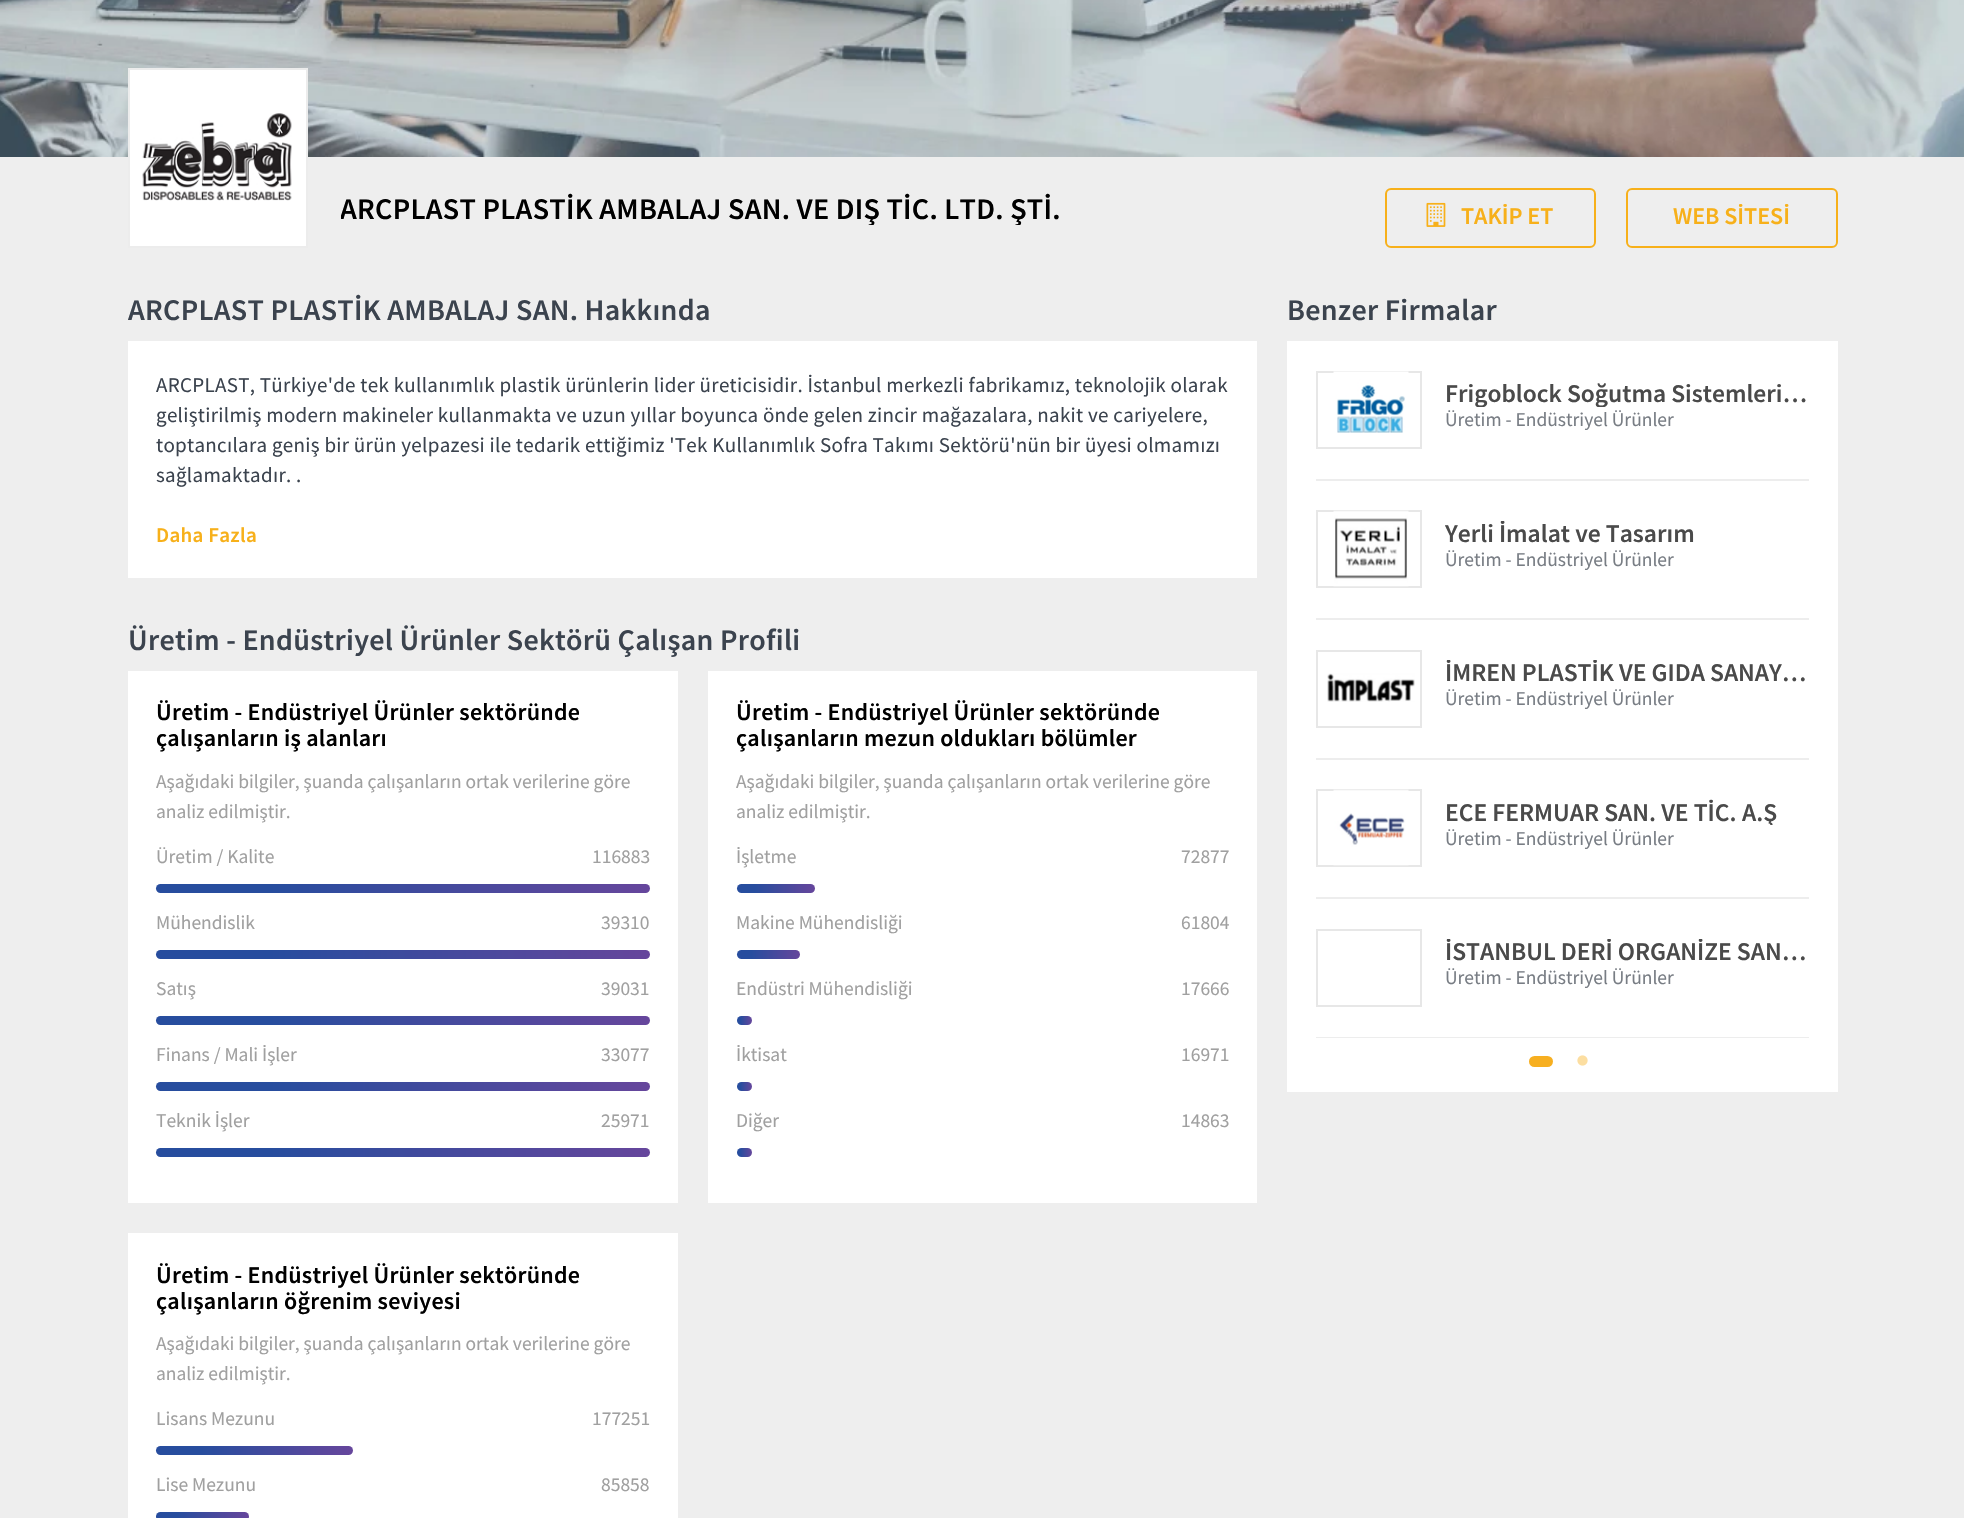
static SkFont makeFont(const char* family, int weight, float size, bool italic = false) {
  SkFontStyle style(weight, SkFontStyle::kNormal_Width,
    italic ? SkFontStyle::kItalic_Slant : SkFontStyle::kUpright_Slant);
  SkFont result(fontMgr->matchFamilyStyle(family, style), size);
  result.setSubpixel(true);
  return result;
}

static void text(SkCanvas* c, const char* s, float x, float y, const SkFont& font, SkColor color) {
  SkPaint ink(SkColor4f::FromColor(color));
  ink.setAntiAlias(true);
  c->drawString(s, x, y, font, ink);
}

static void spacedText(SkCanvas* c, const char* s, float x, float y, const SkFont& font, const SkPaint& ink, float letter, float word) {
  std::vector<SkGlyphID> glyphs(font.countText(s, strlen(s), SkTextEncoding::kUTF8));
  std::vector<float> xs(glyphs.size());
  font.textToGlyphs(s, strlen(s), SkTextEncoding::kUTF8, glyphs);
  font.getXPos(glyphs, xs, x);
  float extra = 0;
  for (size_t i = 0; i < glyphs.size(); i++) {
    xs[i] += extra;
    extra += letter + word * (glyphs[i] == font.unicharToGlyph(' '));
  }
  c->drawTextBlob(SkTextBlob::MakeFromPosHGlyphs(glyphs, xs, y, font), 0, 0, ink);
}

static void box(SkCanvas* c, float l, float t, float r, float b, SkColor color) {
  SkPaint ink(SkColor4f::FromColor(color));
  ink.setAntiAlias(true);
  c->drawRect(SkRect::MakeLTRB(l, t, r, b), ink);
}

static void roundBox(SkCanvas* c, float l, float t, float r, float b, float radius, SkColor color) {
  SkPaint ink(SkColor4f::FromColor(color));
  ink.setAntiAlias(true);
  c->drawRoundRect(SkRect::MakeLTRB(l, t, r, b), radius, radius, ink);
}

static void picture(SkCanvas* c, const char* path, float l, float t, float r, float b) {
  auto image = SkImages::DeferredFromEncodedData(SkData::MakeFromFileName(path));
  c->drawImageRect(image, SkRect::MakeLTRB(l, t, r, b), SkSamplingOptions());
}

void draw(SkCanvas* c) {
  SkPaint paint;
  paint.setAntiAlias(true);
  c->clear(0xffeeeeee);
  picture(c, "img_01.png", 0, 0, 1964, 157);
  paint.setColor(0xffffffff);
  c->drawRect(SkRect::MakeLTRB(129, 69, 307, 247), paint);
  paint.setStyle(SkPaint::kStroke_Style);
  paint.setStrokeWidth(2);
  paint.setColor(0xffececec);
  c->drawRect(SkRect::MakeLTRB(129, 69, 307, 247), paint);
  picture(c, "img_02.png", 142, 113, 292, 201);
  c->save();
  c->clipRect(SkRect::MakeLTRB(341, 192, 1113, 225));
  SkFont face1 = makeFont("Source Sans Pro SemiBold", 600, 30);
  paint.setStyle(SkPaint::kFill_Style);
  paint.setColor(0xff000000);
  spacedText(c, "ARCPLAST PLASTİK AMBALAJ SAN. VE DIŞ TİC. LTD. ŞTİ.", 340, 219, face1, paint, 0.3f, 0);
  c->restore();
  paint.setStyle(SkPaint::kStroke_Style);
  paint.setColor(0xfff7b01a);
  c->drawRoundRect(SkRect::MakeLTRB(1386, 189, 1595, 247), 5, 5, paint);
  picture(c, "img_03.png", 1426, 202, 1446, 227);
  SkFont face2 = makeFont("Source Sans Pro SemiBold", 600, 24);
  text(c, "TAKİP ET", 1461, 224, face2, 0xfff7b01a);
  c->drawRoundRect(SkRect::MakeLTRB(1627, 189, 1837, 247), 5, 5, paint);
  text(c, "WEB SİTESİ", 1673, 224, face2, 0xfff7b01a);
  paint.setStyle(SkPaint::kFill_Style);
  paint.setColor(0xff3b434e);
  spacedText(c, "ARCPLAST PLASTİK AMBALAJ SAN. Hakkında", 128, 320, face1, paint, 0.3f, 0);
  box(c, 128, 341, 1257, 578, 0xffffffff);
  SkFont face3 = makeFont("Source Sans Pro", 400, 21);
  spacedText(c, "ARCPLAST, Türkiye'de tek kullanımlık plastik ürünlerin lider üreticisidir. İstanbul merkezli fabrikamız, teknolojik olarak", 156, 392, face3, paint, 0.3f, 0);
  spacedText(c, "geliştirilmiş modern makineler kullanmakta ve uzun yıllar boyunca önde gelen zincir mağazalara, nakit ve cariyelere,", 156, 422, face3, paint, 0.3f, 0);
  spacedText(c, "toptancılara geniş bir ürün yelpazesi ile tedarik ettiğimiz 'Tek Kullanımlık Sofra Takımı Sektörü'nün bir üyesi olmamızı", 156, 452, face3, paint, 0.3f, 0);
  spacedText(c, "sağlamaktadır. .", 156, 482, face3, paint, 0.3f, 0);
  SkFont face4 = makeFont("Source Sans Pro SemiBold", 600, 21);
  paint.setColor(0xfff7b01a);
  spacedText(c, "Daha Fazla", 156, 542, face4, paint, 0.3f, 0);
  paint.setColor(0xff3b434e);
  spacedText(c, "Üretim - Endüstriyel Ürünler Sektörü Çalışan Profili", 128, 650, face1, paint, 0.3f, 0);
  box(c, 128, 671, 678, 1203, 0xffffffff);
  paint.setColor(0xff000000);
  spacedText(c, "Üretim - Endüstriyel Ürünler sektöründe", 156, 720, face2, paint, 0.25f, 0);
  spacedText(c, "çalışanların iş alanları", 156, 746, face2, paint, 0.25f, 0);
  SkFont face5 = makeFont("Source Sans Pro", 400, 19.5f);
  text(c, "Aşağıdaki bilgiler, şuanda çalışanların ortak verilerine göre", 156, 788, face5, 0xffa0a0a0);
  text(c, "analiz edilmiştir.", 156, 818, face5, 0xffa0a0a0);
  text(c, "Üretim / Kalite", 156, 863, face5, 0xffa0a0a0);
  text(c, "116883", 592, 863, face5, 0xffa0a0a0);
  {
    const SkColor colors[] = {0xff66469c, 0xff274d9e, 0xff274d9e};
    const float stops[] = {0, 0.77f, 1};
    const SkPoint ends[] = {{650, 888}, {156, 888}};
    paint.setShader(SkGradientShader::MakeLinear(ends, colors, stops, 3, SkTileMode::kClamp));
    paint.setAlpha(255);
  }
  c->drawRoundRect(SkRect::MakeLTRB(156, 884, 650, 893), 4.5f, 4.5f, paint);
  text(c, "Mühendislik", 156, 929, face5, 0xffa0a0a0);
  text(c, "39310", 601, 929, face5, 0xffa0a0a0);
  {
    const SkColor colors[] = {0xff66469c, 0xff274d9e, 0xff274d9e};
    const float stops[] = {0, 0.77f, 1};
    const SkPoint ends[] = {{650, 954}, {156, 954}};
    paint.setShader(SkGradientShader::MakeLinear(ends, colors, stops, 3, SkTileMode::kClamp));
    paint.setAlpha(255);
  }
  c->drawRoundRect(SkRect::MakeLTRB(156, 950, 650, 959), 4.5f, 4.5f, paint);
  text(c, "Satış", 156, 995, face5, 0xffa0a0a0);
  text(c, "39031", 601, 995, face5, 0xffa0a0a0);
  {
    const SkColor colors[] = {0xff66469c, 0xff274d9e, 0xff274d9e};
    const float stops[] = {0, 0.77f, 1};
    const SkPoint ends[] = {{650, 1020}, {156, 1020}};
    paint.setShader(SkGradientShader::MakeLinear(ends, colors, stops, 3, SkTileMode::kClamp));
    paint.setAlpha(255);
  }
  c->drawRoundRect(SkRect::MakeLTRB(156, 1016, 650, 1025), 4.5f, 4.5f, paint);
  text(c, "Finans / Mali İşler", 156, 1061, face5, 0xffa0a0a0);
  text(c, "33077", 601, 1061, face5, 0xffa0a0a0);
  {
    const SkColor colors[] = {0xff66469c, 0xff274d9e, 0xff274d9e};
    const float stops[] = {0, 0.77f, 1};
    const SkPoint ends[] = {{650, 1086}, {156, 1086}};
    paint.setShader(SkGradientShader::MakeLinear(ends, colors, stops, 3, SkTileMode::kClamp));
    paint.setAlpha(255);
  }
  c->drawRoundRect(SkRect::MakeLTRB(156, 1082, 650, 1091), 4.5f, 4.5f, paint);
  text(c, "Teknik İşler", 156, 1127, face5, 0xffa0a0a0);
  text(c, "25971", 601, 1127, face5, 0xffa0a0a0);
  {
    const SkColor colors[] = {0xff66469c, 0xff274d9e, 0xff274d9e};
    const float stops[] = {0, 0.77f, 1};
    const SkPoint ends[] = {{650, 1152}, {156, 1152}};
    paint.setShader(SkGradientShader::MakeLinear(ends, colors, stops, 3, SkTileMode::kClamp));
    paint.setAlpha(255);
  }
  c->drawRoundRect(SkRect::MakeLTRB(156, 1148, 650, 1157), 4.5f, 4.5f, paint);
  box(c, 708, 671, 1257, 1203, 0xffffffff);
  paint.setShader(nullptr);
  paint.setColor(0xff000000);
  spacedText(c, "Üretim - Endüstriyel Ürünler sektöründe", 736, 720, face2, paint, 0.25f, 0);
  spacedText(c, "çalışanların mezun oldukları bölümler", 736, 746, face2, paint, 0.25f, 0);
  text(c, "Aşağıdaki bilgiler, şuanda çalışanların ortak verilerine göre", 736, 788, face5, 0xffa0a0a0);
  text(c, "analiz edilmiştir.", 736, 818, face5, 0xffa0a0a0);
  text(c, "İşletme", 736, 863, face5, 0xffa0a0a0);
  text(c, "72877", 1181, 863, face5, 0xffa0a0a0);
  {
    const SkColor colors[] = {0xff66469c, 0xff274d9e, 0xff274d9e};
    const float stops[] = {0, 0.77f, 1};
    const SkPoint ends[] = {{815, 888}, {737, 888}};
    paint.setShader(SkGradientShader::MakeLinear(ends, colors, stops, 3, SkTileMode::kClamp));
    paint.setAlpha(255);
  }
  c->drawRoundRect(SkRect::MakeLTRB(737, 884, 815, 893), 4.5f, 4.5f, paint);
  text(c, "Makine Mühendisliği", 736, 929, face5, 0xffa0a0a0);
  text(c, "61804", 1181, 929, face5, 0xffa0a0a0);
  {
    const SkColor colors[] = {0xff66469c, 0xff274d9e, 0xff274d9e};
    const float stops[] = {0, 0.77f, 1};
    const SkPoint ends[] = {{800, 954}, {737, 954}};
    paint.setShader(SkGradientShader::MakeLinear(ends, colors, stops, 3, SkTileMode::kClamp));
    paint.setAlpha(255);
  }
  c->drawRoundRect(SkRect::MakeLTRB(737, 950, 800, 959), 4.5f, 4.5f, paint);
  text(c, "Endüstri Mühendisliği", 736, 995, face5, 0xffa0a0a0);
  text(c, "17666", 1181, 995, face5, 0xffa0a0a0);
  {
    const SkColor colors[] = {0xff66469c, 0xff274d9e, 0xff274d9e};
    const float stops[] = {0, 0.77f, 1};
    const SkPoint ends[] = {{752, 1020}, {737, 1020}};
    paint.setShader(SkGradientShader::MakeLinear(ends, colors, stops, 3, SkTileMode::kClamp));
    paint.setAlpha(255);
  }
  c->drawRoundRect(SkRect::MakeLTRB(737, 1016, 752, 1025), 4.5f, 4.5f, paint);
  text(c, "İktisat", 736, 1061, face5, 0xffa0a0a0);
  text(c, "16971", 1181, 1061, face5, 0xffa0a0a0);
  {
    const SkColor colors[] = {0xff66469c, 0xff274d9e, 0xff274d9e};
    const float stops[] = {0, 0.77f, 1};
    const SkPoint ends[] = {{752, 1086}, {737, 1086}};
    paint.setShader(SkGradientShader::MakeLinear(ends, colors, stops, 3, SkTileMode::kClamp));
    paint.setAlpha(255);
  }
  c->drawRoundRect(SkRect::MakeLTRB(737, 1082, 752, 1091), 4.5f, 4.5f, paint);
  text(c, "Diğer", 736, 1127, face5, 0xffa0a0a0);
  text(c, "14863", 1181, 1127, face5, 0xffa0a0a0);
  {
    const SkColor colors[] = {0xff66469c, 0xff274d9e, 0xff274d9e};
    const float stops[] = {0, 0.77f, 1};
    const SkPoint ends[] = {{752, 1152}, {737, 1152}};
    paint.setShader(SkGradientShader::MakeLinear(ends, colors, stops, 3, SkTileMode::kClamp));
    paint.setAlpha(255);
  }
  c->drawRoundRect(SkRect::MakeLTRB(737, 1148, 752, 1157), 4.5f, 4.5f, paint);
  box(c, 128, 1233, 678, 1518, 0xffffffff);
  paint.setShader(nullptr);
  paint.setColor(0xff000000);
  spacedText(c, "Üretim - Endüstriyel Ürünler sektöründe", 156, 1283, face2, paint, 0.25f, 0);
  spacedText(c, "çalışanların öğrenim seviyesi", 156, 1309, face2, paint, 0.25f, 0);
  text(c, "Aşağıdaki bilgiler, şuanda çalışanların ortak verilerine göre", 156, 1350, face5, 0xffa0a0a0);
  text(c, "analiz edilmiştir.", 156, 1380, face5, 0xffa0a0a0);
  text(c, "Lisans Mezunu", 156, 1425, face5, 0xffa0a0a0);
  text(c, "177251", 592, 1425, face5, 0xffa0a0a0);
  {
    const SkColor colors[] = {0xff66469c, 0xff274d9e, 0xff274d9e};
    const float stops[] = {0, 0.77f, 1};
    const SkPoint ends[] = {{353, 1451}, {156, 1451}};
    paint.setShader(SkGradientShader::MakeLinear(ends, colors, stops, 3, SkTileMode::kClamp));
    paint.setAlpha(255);
  }
  c->drawRoundRect(SkRect::MakeLTRB(156, 1446, 353, 1455), 4.5f, 4.5f, paint);
  text(c, "Lise Mezunu", 156, 1491, face5, 0xffa0a0a0);
  text(c, "85858", 601, 1491, face5, 0xffa0a0a0);
  {
    const SkColor colors[] = {0xff66469c, 0xff274d9e, 0xff274d9e};
    const float stops[] = {0, 0.77f, 1};
    const SkPoint ends[] = {{249, 1517}, {156, 1517}};
    paint.setShader(SkGradientShader::MakeLinear(ends, colors, stops, 3, SkTileMode::kClamp));
    paint.setAlpha(255);
  }
  c->drawRoundRect(SkRect::MakeLTRB(156, 1512, 249, 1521), 4.5f, 4.5f, paint);
  paint.setShader(nullptr);
  paint.setColor(0xff3b434e);
  spacedText(c, "Benzer Firmalar", 1287, 320, face1, paint, 0.3f, 0);
  box(c, 1287, 341, 1838, 1092, 0xffffffff);
  box(c, 1316, 479, 1809, 481, 0xffededed);
  paint.setStyle(SkPaint::kStroke_Style);
  paint.setColor(0xffe7e7e7);
  c->drawRect(SkRect::MakeLTRB(1317, 372, 1421, 448), paint);
  picture(c, "img_04.png", 1333, 371, 1409, 433);
  c->save();
  c->clipRect(SkRect::MakeLTRB(1445, 381, 1809, 407));
  SkFont face6 = makeFont("Source Sans Pro SemiBold", 600, 25.5f);
  text(c, "Frigoblock Soğutma Sistemleri…", 1445, 402, face6, 0xff4a4a4a);
  c->restore();
  text(c, "Üretim - Endüstriyel Ürünler", 1445, 426, face5, 0xff787d84);
  box(c, 1316, 618, 1809, 620, 0xffededed);
  c->drawRect(SkRect::MakeLTRB(1317, 511, 1421, 587), paint);
  picture(c, "img_05.png", 1333, 510, 1409, 587);
  c->save();
  c->clipRect(SkRect::MakeLTRB(1445, 521, 1809, 546));
  text(c, "Yerli İmalat ve Tasarım", 1445, 542, face6, 0xff4a4a4a);
  c->restore();
  text(c, "Üretim - Endüstriyel Ürünler", 1445, 566, face5, 0xff787d84);
  box(c, 1316, 758, 1809, 760, 0xffededed);
  c->drawRect(SkRect::MakeLTRB(1317, 651, 1421, 727), paint);
  picture(c, "img_06.png", 1327, 673, 1415, 702);
  c->save();
  c->clipRect(SkRect::MakeLTRB(1445, 660, 1809, 686));
  text(c, "İMREN PLASTİK VE GIDA SANAY…", 1445, 681, face6, 0xff4a4a4a);
  c->restore();
  text(c, "Üretim - Endüstriyel Ürünler", 1445, 705, face5, 0xff787d84);
  box(c, 1316, 897, 1809, 899, 0xffededed);
  c->drawRect(SkRect::MakeLTRB(1317, 790, 1421, 866), paint);
  picture(c, "img_07.png", 1333, 789, 1409, 866);
  text(c, "ECE FERMUAR SAN. VE TİC.", 1445, 821, face6, 0xff4a4a4a);
  c->save();
  c->clipRect(SkRect::MakeLTRB(1445, 800, 1809, 825));
  text(c, "A.Ş", 1742, 821, face6, 0xff4a4a4a);
  c->restore();
  text(c, "Üretim - Endüstriyel Ürünler", 1445, 845, face5, 0xff787d84);
  box(c, 1316, 1037, 1809, 1038, 0xffededed);
  c->drawRect(SkRect::MakeLTRB(1317, 930, 1421, 1006), paint);
  c->save();
  c->clipRect(SkRect::MakeLTRB(1445, 939, 1809, 965));
  text(c, "İSTANBUL DERİ ORGANİZE SAN…", 1445, 960, face6, 0xff4a4a4a);
  c->restore();
  text(c, "Üretim - Endüstriyel Ürünler", 1445, 984, face5, 0xff787d84);
  roundBox(c, 1529, 1056, 1553, 1067, 5.5f, 0xfff7af20);
  picture(c, "img_08.png", 1577, 1055, 1588, 1066);
}
